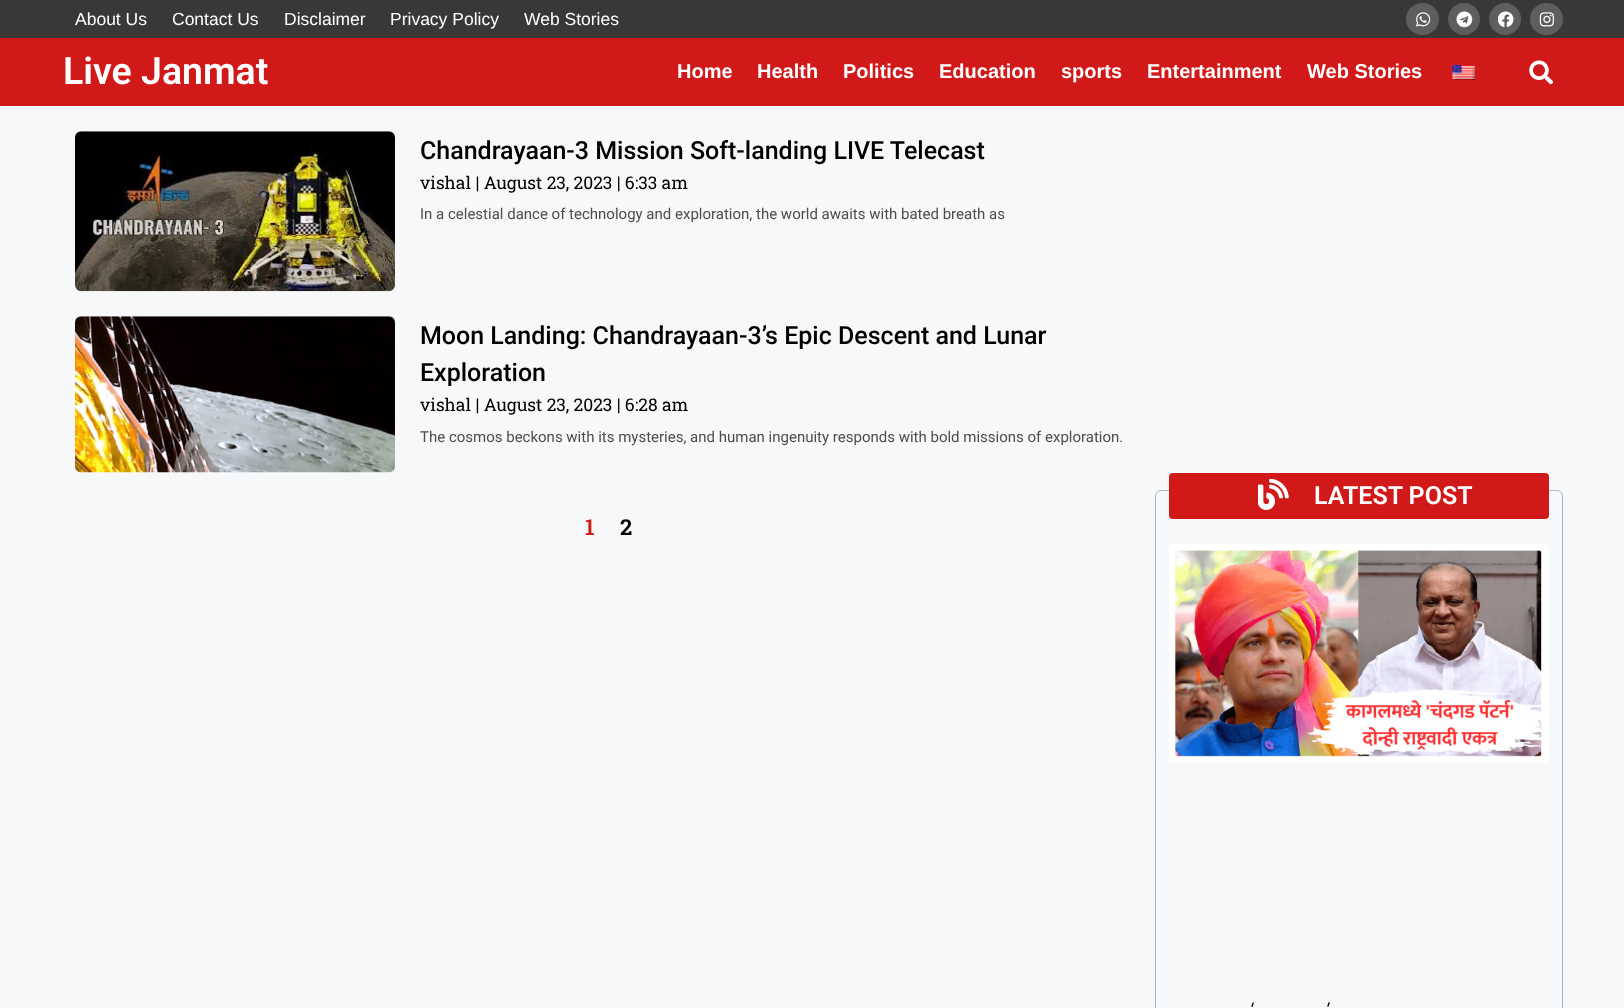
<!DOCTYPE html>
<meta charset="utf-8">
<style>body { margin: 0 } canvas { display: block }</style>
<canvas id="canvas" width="1624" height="1008"></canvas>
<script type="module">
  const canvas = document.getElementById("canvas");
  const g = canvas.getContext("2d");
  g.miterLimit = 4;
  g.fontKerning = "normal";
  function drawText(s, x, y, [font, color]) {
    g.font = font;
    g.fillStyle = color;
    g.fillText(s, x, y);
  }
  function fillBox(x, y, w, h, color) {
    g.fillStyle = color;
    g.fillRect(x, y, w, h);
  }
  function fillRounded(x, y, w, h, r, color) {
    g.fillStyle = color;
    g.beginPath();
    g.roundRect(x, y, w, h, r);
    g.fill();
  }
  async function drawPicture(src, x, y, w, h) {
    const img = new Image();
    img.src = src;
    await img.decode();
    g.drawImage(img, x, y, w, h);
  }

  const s1 = ["17.5px Liberation Sans", "#FFFFFF"];
  const s2 = ["600 37.5px Roboto", "#FFFFFF"];
  const s3 = ["bold 20px Liberation Sans", "#FFFFFF"];
  const s4 = ["500 25px Roboto", "#000000"];
  const s5 = ["17.5px Roboto Slab", "#000000"];
  const s6 = ["15px Roboto", "#4D4D4D"];
  const s7 = ["600 22px Roboto Slab", "#D11919"];
  const s8 = ["600 22px Roboto Slab", "#000000"];
  const s9 = ["600 25px Roboto", "#FFFFFF"];
  const s10 = ["17.5px Noto Sans", "#000000"];

  fillBox(0, 0, 1624, 1008, "#F7F8F9");
  fillBox(0, 0, 1624, 38, "#383838");
  drawText("About Us", 75, 25, s1);
  drawText("Contact Us", 172, 25, s1);
  drawText("Disclaimer", 284, 25, s1);
  drawText("Privacy Policy", 390, 25, s1);
  drawText("Web Stories", 524, 25, s1);
  fillRounded(1406, 3, 33, 32, 16, "#5E5E5E");
  await drawPicture("pic1.png", 1416, 12, 15, 15);
  g.beginPath();
  g.arc(1464, 19, 16, 0, Math.PI * 2);
  g.fill();
  await drawPicture("pic2.png", 1456, 11, 17, 17);
  g.beginPath();
  g.arc(1505, 19, 16, 0, Math.PI * 2);
  g.fill();
  await drawPicture("pic3.png", 1498, 11, 16, 17);
  fillRounded(1530, 3, 33, 32, 16, "#5E5E5E");
  await drawPicture("pic4.png", 1539, 12, 15, 15);
  fillBox(0, 38, 1624, 68, "#D11919");
  drawText("Live Janmat", 63, 84, s2);
  drawText("Home", 677, 78, s3);
  drawText("Health", 757, 78, s3);
  drawText("Politics", 843, 78, s3);
  drawText("Education", 939, 78, s3);
  drawText("sports", 1061, 78, s3);
  drawText("Entertainment", 1147, 78, s3);
  drawText("Web Stories", 1307, 78, s3);
  await drawPicture("pic5.png", 1452, 65, 23, 15);
  await drawPicture("pic6.png", 1529, 60, 24, 24);
  await drawPicture("pic7.png", 75, 131, 320, 161);
  drawText("Chandrayaan-3 Mission Soft-landing LIVE Telecast", 420, 159, s4);
  drawText("vishal | August 23, 2023 | 6:33 am", 420, 189, s5);
  drawText("In a celestial dance of technology and exploration, the world awaits with bated breath as", 420, 219, s6);
  await drawPicture("pic8.png", 75, 316, 320, 157);
  drawText("Moon Landing: Chandrayaan-3’s Epic Descent and Lunar", 420, 344, s4);
  drawText("Exploration", 420, 381, s4);
  drawText("vishal | August 23, 2023 | 6:28 am", 420, 411, s5);
  drawText("The cosmos beckons with its mysteries, and human ingenuity responds with bold missions of exploration.", 420, 442, s6);
  drawText("1", 585, 535, s7);
  drawText("2", 620, 535, s8);
  g.beginPath();
  g.roundRect(1155.5, 490.5, 407, 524, 5.5);
  g.strokeStyle = "#ABB8C3";
  g.stroke();
  fillRounded(1169, 473, 380, 46, 4, "#D11919");
  await drawPicture("pic9.png", 1258, 479, 31, 31);
  drawText("LATEST POST", 1314, 504, s9);
  await drawPicture("pic10.png", 1169, 544, 380, 219);
  drawText("‘", 1251, 1015, s10);
  drawText("’", 1327, 1015, s10);
</script>
